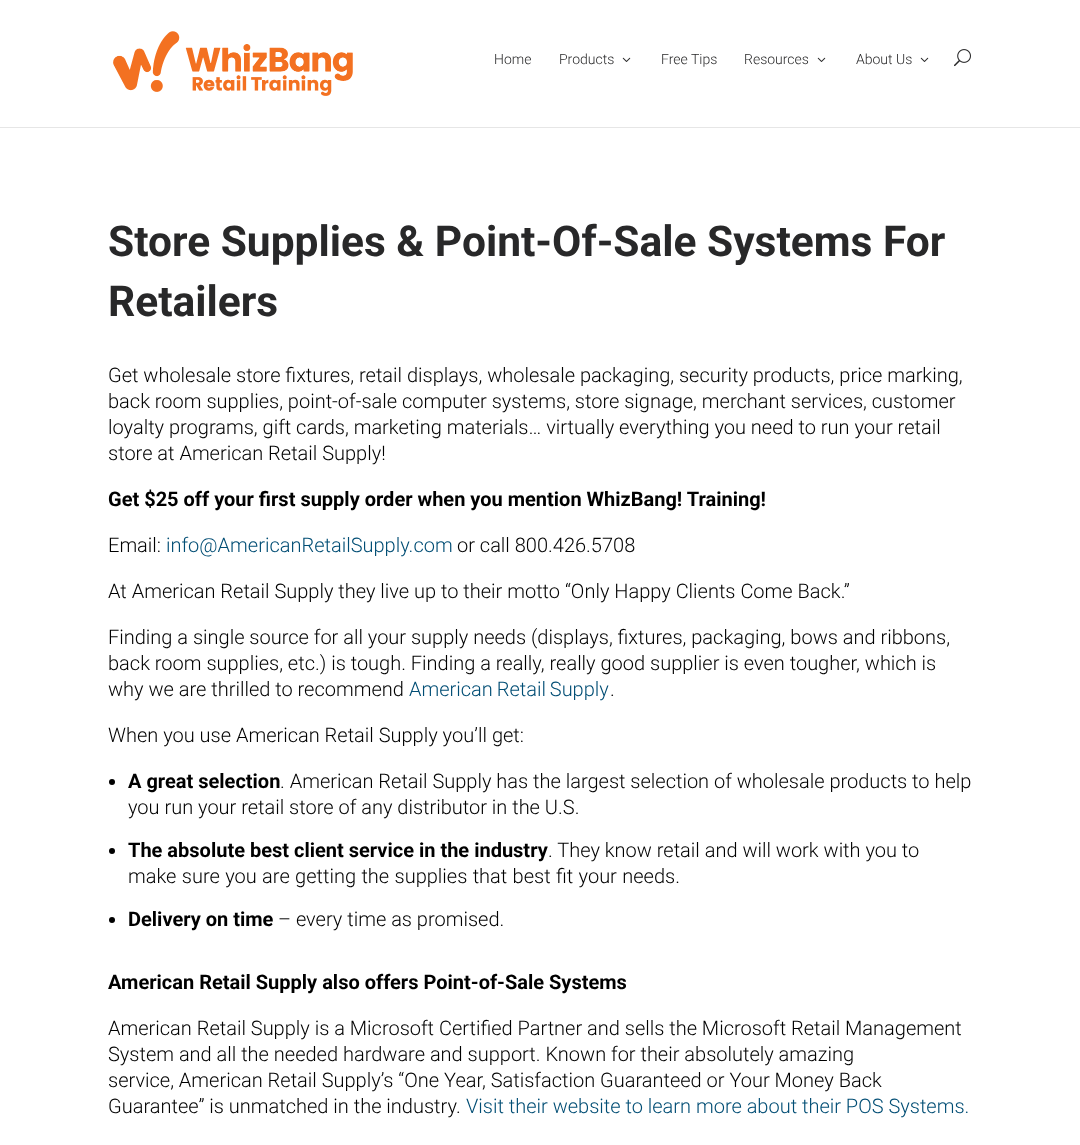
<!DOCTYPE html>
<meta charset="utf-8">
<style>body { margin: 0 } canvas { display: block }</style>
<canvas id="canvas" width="1080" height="1145"></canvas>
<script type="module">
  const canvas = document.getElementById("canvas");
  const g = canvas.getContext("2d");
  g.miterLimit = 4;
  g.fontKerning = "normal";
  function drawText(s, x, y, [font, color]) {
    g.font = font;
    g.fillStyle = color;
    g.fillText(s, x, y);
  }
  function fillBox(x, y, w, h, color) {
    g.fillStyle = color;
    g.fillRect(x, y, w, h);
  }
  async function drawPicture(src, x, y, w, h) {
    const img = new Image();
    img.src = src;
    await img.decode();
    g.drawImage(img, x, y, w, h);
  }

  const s1 = ["300 14px Roboto", "#282829"];
  const s2 = ["bold 42.5px Roboto", "#282829"];
  const s3 = ["300 20px Roboto", "#000000"];
  const s4 = ["bold 20px Roboto", "#000000"];
  const s5 = ["300 20px Roboto", "#004D74"];

  fillBox(0, 0, 1080, 1145, "#FFFFFF");
  fillBox(0, 127, 1080, 1, "#E6E6E6");
  await drawPicture("pic1.png", 113, 31, 240, 65);
  drawText("Home", 494, 64, s1);
  drawText("Products", 559, 64, s1);
  await drawPicture("pic2.png", 622, 57, 9, 5);
  drawText("Free Tips", 661, 64, s1);
  drawText("Resources", 744, 64, s1);
  await drawPicture("pic2.png", 817, 57, 9, 5);
  drawText("About Us", 856, 64, s1);
  await drawPicture("pic2.png", 920, 57, 9, 5);
  await drawPicture("pic3.png", 954, 49, 17, 18);
  drawText("Store Supplies & Point-Of-Sale Systems For", 108, 256, s2);
  drawText("Retailers", 108, 316, s2);
  drawText("Get wholesale store fixtures, retail displays, wholesale packaging, security products, price marking,", 108, 382, s3);
  drawText("back room supplies, point-of-sale computer systems, store signage, merchant services, customer", 108, 408, s3);
  drawText("loyalty programs, gift cards, marketing materials… virtually everything you need to run your retail", 108, 434, s3);
  drawText("store at American Retail Supply!", 108, 460, s3);
  drawText("Get $25 off your first supply order when you mention WhizBang! Training!", 108, 506, s4);
  drawText("Email:", 108, 552, s3);
  drawText("info@AmericanRetailSupply.com", 166, 552, s5);
  drawText("or call 800.426.5708", 457, 552, s3);
  drawText("At American Retail Supply they live up to their motto “Only Happy Clients Come Back.”", 108, 598, s3);
  drawText("Finding a single source for all your supply needs (displays, fixtures, packaging, bows and ribbons,", 108, 644, s3);
  drawText("back room supplies, etc.) is tough. Finding a really, really good supplier is even tougher, which is", 108, 670, s3);
  drawText("why we are thrilled to recommend", 108, 696, s3);
  g.wordSpacing = "-1px";
  drawText("American Retail Supply", 409, 696, s5);
  g.wordSpacing = "0px";
  drawText(".", 610, 696, s3);
  drawText("When you use American Retail Supply you’ll get:", 108, 742, s3);
  g.beginPath();
  g.arc(112, 782, 3, 0, Math.PI * 2);
  g.fill();
  drawText("A great selection", 128, 788, s4);
  drawText(". American Retail Supply has the largest selection of wholesale products to help", 280, 788, s3);
  drawText("you run your retail store of any distributor in the U.S.", 128, 814, s3);
  g.beginPath();
  g.arc(112, 851, 3, 0, Math.PI * 2);
  g.fill();
  drawText("The absolute best client service in the industry", 128, 857, s4);
  drawText(". They know retail and will work with you to", 548, 857, s3);
  g.wordSpacing = "0.5px";
  drawText("make sure you are getting the supplies that best fit your needs.", 128, 883, s3);
  g.beginPath();
  g.arc(112, 920, 3, 0, Math.PI * 2);
  g.fill();
  g.wordSpacing = "0px";
  drawText("Delivery on time", 128, 926, s4);
  drawText("– every time as promised.", 278, 926, s3);
  drawText("American Retail Supply also offers Point-of-Sale Systems", 108, 989, s4);
  drawText("American Retail Supply is a Microsoft Certified Partner and sells the Microsoft Retail Management", 108, 1035, s3);
  drawText("System and all the needed hardware and support. Known for their absolutely amazing", 108, 1061, s3);
  drawText("service, American Retail Supply’s “One Year, Satisfaction Guaranteed or Your Money Back", 108, 1087, s3);
  drawText("Guarantee” is unmatched in the industry.", 108, 1113, s3);
  drawText("Visit their website to learn more about their POS Systems.", 466, 1113, s5);
</script>
